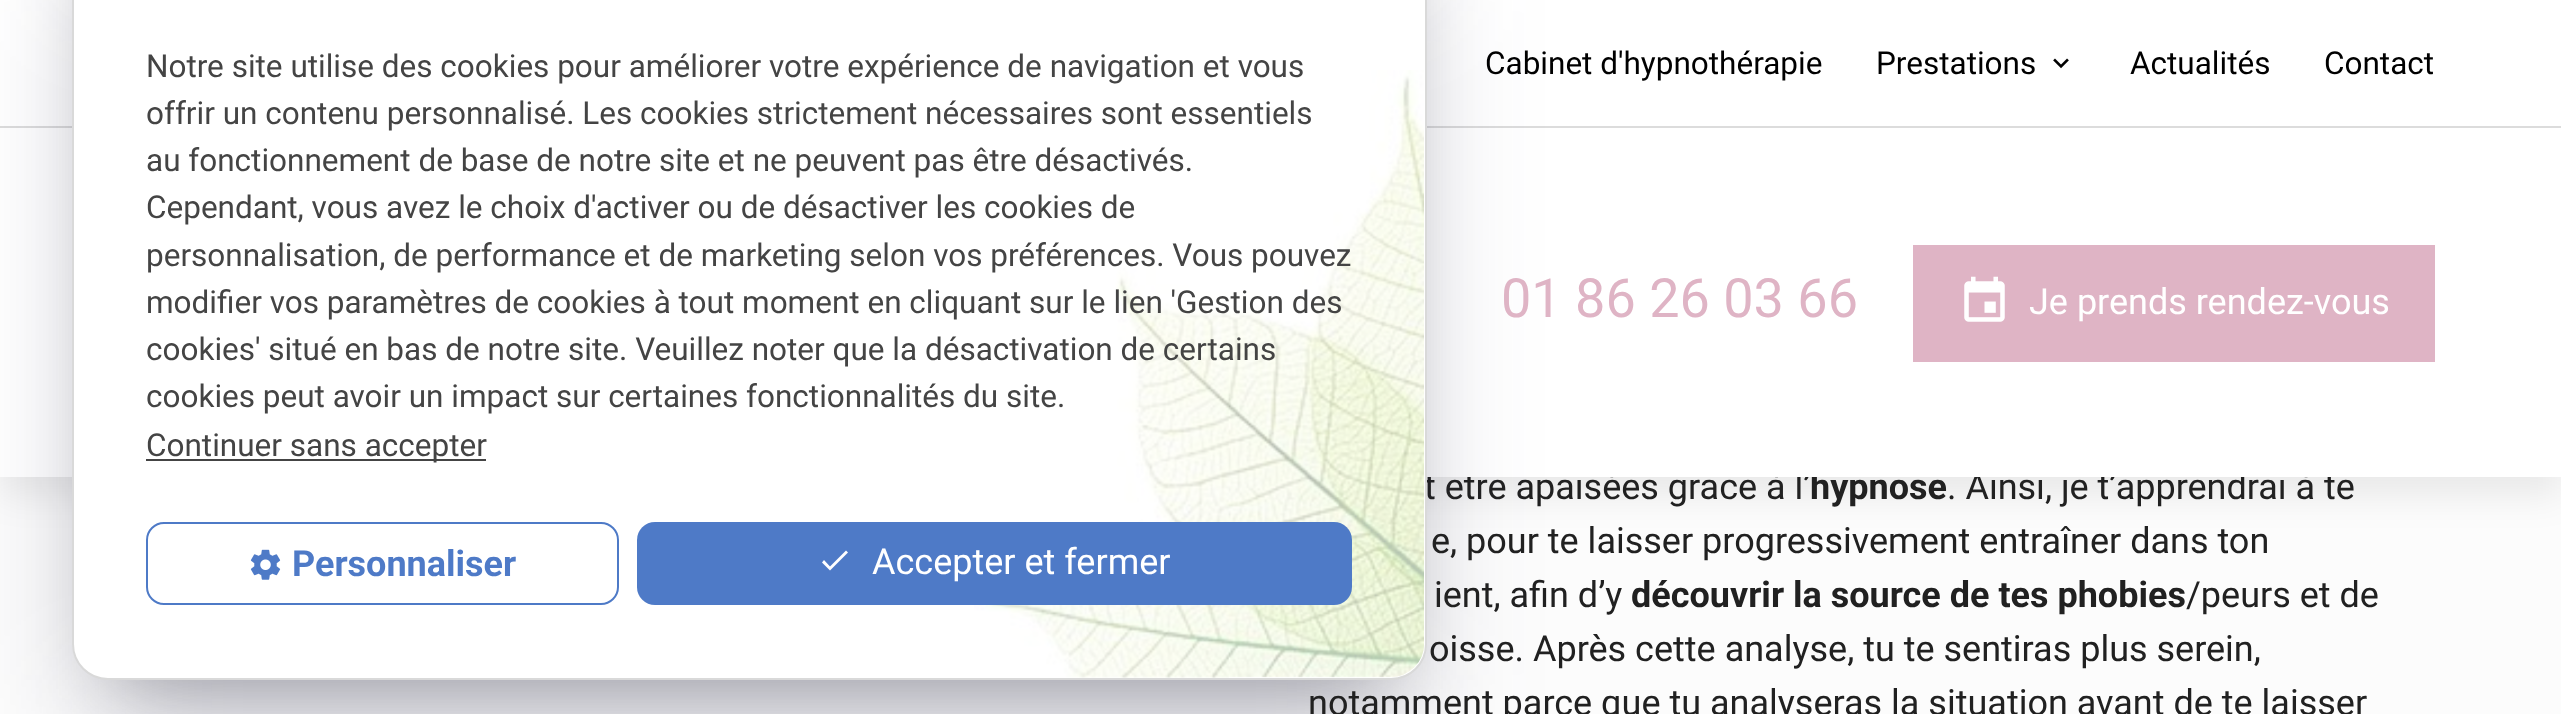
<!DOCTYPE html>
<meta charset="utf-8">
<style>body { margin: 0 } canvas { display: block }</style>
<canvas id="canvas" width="2561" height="714"></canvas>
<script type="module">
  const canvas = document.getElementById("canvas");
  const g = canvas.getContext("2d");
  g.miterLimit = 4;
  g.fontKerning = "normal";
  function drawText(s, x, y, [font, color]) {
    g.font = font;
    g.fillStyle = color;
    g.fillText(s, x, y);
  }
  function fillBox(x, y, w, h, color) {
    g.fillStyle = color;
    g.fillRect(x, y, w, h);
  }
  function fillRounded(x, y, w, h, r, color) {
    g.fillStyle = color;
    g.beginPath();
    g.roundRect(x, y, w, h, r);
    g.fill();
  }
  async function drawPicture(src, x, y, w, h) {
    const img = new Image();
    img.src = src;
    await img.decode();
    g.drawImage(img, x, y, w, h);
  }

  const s1 = ["36px Roboto", "#212121"];
  const s2 = ["bold 36px Roboto", "#212121"];
  const s3 = ["31.5px Roboto", "#444444"];
  const s4 = ["bold 36px Roboto", "#4E7AC7"];
  const s5 = ["36px Roboto", "#FFFFFF"];
  const s6 = ["31.5px Roboto", "#000000"];
  const s7 = ["54px Roboto", "#DFB4C5"];

  fillBox(0, 0, 2561, 714, "#FCFCFC");
  g.fillStyle = "rgba(0, 0, 0, 0.08)";
  g.filter = "blur(18px)";
  g.beginPath();
  g.rect(0, 18, 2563, 477);
  g.fill();
  g.filter = "none";
  drawText("t être apaisées grâce à l’", 1424, 499, s1);
  drawText("hypnose", 1810, 499, s2);
  drawText(". Ainsi, je t’apprendrai à te", 1947, 499, s1);
  fillBox(0, 0, 2561, 477, "#FFFFFF");
  fillBox(0, 126, 2561, 2, "#DCDCDC");
  g.fillStyle = "rgba(0, 0, 0, 0.3)";
  g.filter = "blur(40.5px)";
  g.beginPath();
  g.rect(113, -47, 1273, 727);
  g.fill();
  g.filter = "none";
  g.fillStyle = "rgba(50, 50, 93, 0.25)";
  g.filter = "blur(67.5px)";
  g.beginPath();
  g.roundRect(99, -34, 1301, 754, 9);
  g.fill();
  g.filter = "none";
  g.fillStyle = "#FFFFFF";
  g.beginPath();
  g.roundRect(73, -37, 1353, 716, 35);
  g.fill();
  g.strokeStyle = "#D9D9D9";
  g.lineWidth = 2;
  g.stroke();
  await drawPicture("pic2.png", 974, 70, 450, 608);
  drawText("Notre site utilise des cookies pour améliorer votre expérience de navigation et vous", 146, 77, s3);
  drawText("offrir un contenu personnalisé. Les cookies strictement nécessaires sont essentiels", 146, 124, s3);
  drawText("au fonctionnement de base de notre site et ne peuvent pas être désactivés.", 146, 171, s3);
  drawText("Cependant, vous avez le choix d'activer ou de désactiver les cookies de", 146, 218, s3);
  drawText("personnalisation, de performance et de marketing selon vos préférences. Vous pouvez", 146, 266, s3);
  drawText("modifier vos paramètres de cookies à tout moment en cliquant sur le lien 'Gestion des", 146, 313, s3);
  drawText("cookies' situé en bas de notre site. Veuillez noter que la désactivation de certains", 146, 360, s3);
  drawText("cookies peut avoir un impact sur certaines fonctionnalités du site.", 146, 407, s3);
  fillBox(146, 459, 340, 2, "#444444");
  drawText("Continuer sans accepter", 146, 456, s3);
  g.beginPath();
  g.roundRect(147, 523, 471, 81, 17);
  g.strokeStyle = "#4E7AC7";
  g.stroke();
  await drawPicture("pic1.png", 250, 549, 31, 31);
  drawText("Personnaliser", 292, 576, s4);
  fillRounded(637, 522, 715, 83, 18, "#4E7AC7");
  g.fillStyle = "#FFFFFF";
  g.beginPath();
  g.moveTo(830, 566.5);
  g.lineTo(846, 550.5);
  g.lineTo(848, 552.5);
  g.lineTo(830, 570.5);
  g.lineTo(822, 562.5);
  g.lineTo(824, 560);
  g.closePath();
  g.fill();
  drawText("Accepter et fermer", 872, 574, s5);
  drawText("Cabinet d'hypnothérapie", 1485, 74, s6);
  drawText("Prestations", 1876, 74, s6);
  await drawPicture("pic3.png", 2053, 58, 16, 11);
  drawText("Actualités", 2130, 74, s6);
  drawText("Contact", 2324, 74, s6);
  drawText("01 86 26 03 66", 1501, 317, s7);
  fillBox(1913, 245, 522, 117, "#DFB4C5");
  await drawPicture("pic4.png", 1964, 276, 41, 46);
  drawText("Je prends rendez-vous", 2029, 314, s5);
  drawText("e, pour te laisser progressivement entraîner dans ton", 1431, 553, s1);
  drawText("ient, afin d’y", 1434, 607, s1);
  drawText("découvrir la source de tes phobies", 1631, 607, s2);
  drawText("/peurs et de", 2186, 607, s1);
  drawText("oisse. Après cette analyse, tu te sentiras plus serein,", 1429, 661, s1);
  drawText("notamment parce que tu analyseras la situation avant de te laisser", 1308, 715, s1);
</script>
